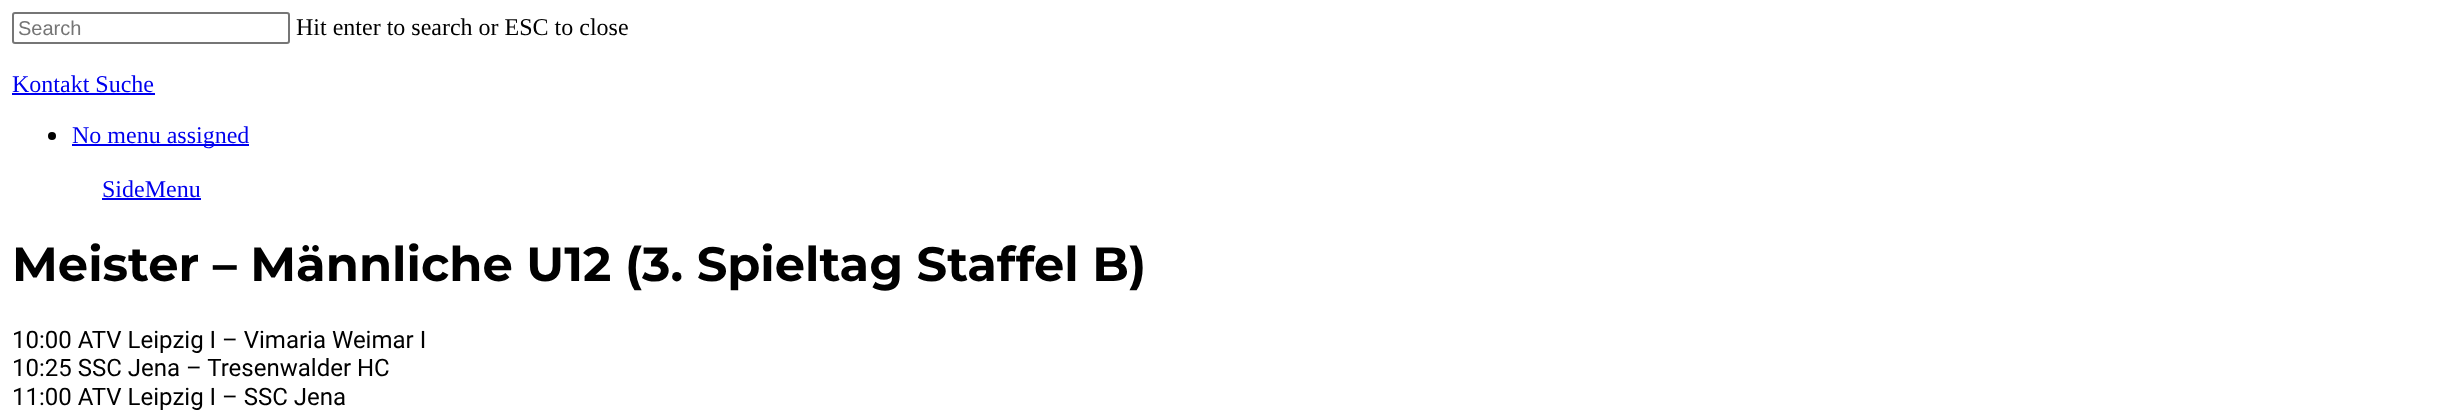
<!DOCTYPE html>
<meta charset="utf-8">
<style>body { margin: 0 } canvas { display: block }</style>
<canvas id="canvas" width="2452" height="414"></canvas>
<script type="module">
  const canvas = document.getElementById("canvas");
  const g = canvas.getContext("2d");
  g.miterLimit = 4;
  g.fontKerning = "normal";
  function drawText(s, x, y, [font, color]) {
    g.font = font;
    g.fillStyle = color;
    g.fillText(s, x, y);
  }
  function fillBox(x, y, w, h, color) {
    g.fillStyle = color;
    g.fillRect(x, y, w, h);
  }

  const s1 = ["20px Liberation Sans", "#757575"];
  const s2 = ["24px Liberation Serif", "#000000"];
  const s3 = ["24px Liberation Serif", "#0000EE"];
  const s4 = ["bold 48px Montserrat", "#000000"];
  const s5 = ["24px Roboto", "#000000"];

  fillBox(0, 0, 2452, 414, "#FFFFFF");
  g.beginPath();
  g.roundRect(13, 13, 276, 30, 2);
  g.strokeStyle = "#767676";
  g.lineWidth = 2;
  g.stroke();
  drawText("Search", 18, 35, s1);
  drawText("Hit enter to search or ESC to close", 296, 35, s2);
  drawText("Kontakt Suche", 12, 92, s3);
  fillBox(12, 93, 143, 2, "#0000EE");
  g.fillStyle = "#000000";
  g.beginPath();
  g.arc(52, 136, 4, 0, Math.PI * 2);
  g.fill();
  fillBox(72, 144, 177, 2, "#0000EE");
  drawText("No menu assigned", 72, 143, s3);
  drawText("SideMenu", 102, 197, s3);
  fillBox(102, 198, 99, 2, "#0000EE");
  drawText("Meister – Männliche U12 (3. Spieltag Staffel B)", 12, 281, s4);
  drawText("10:00 ATV Leipzig I – Vimaria Weimar I", 12, 348, s5);
  drawText("10:25 SSC Jena – Tresenwalder HC", 12, 376, s5);
  drawText("11:00 ATV Leipzig I – SSC Jena", 12, 405, s5);
</script>
